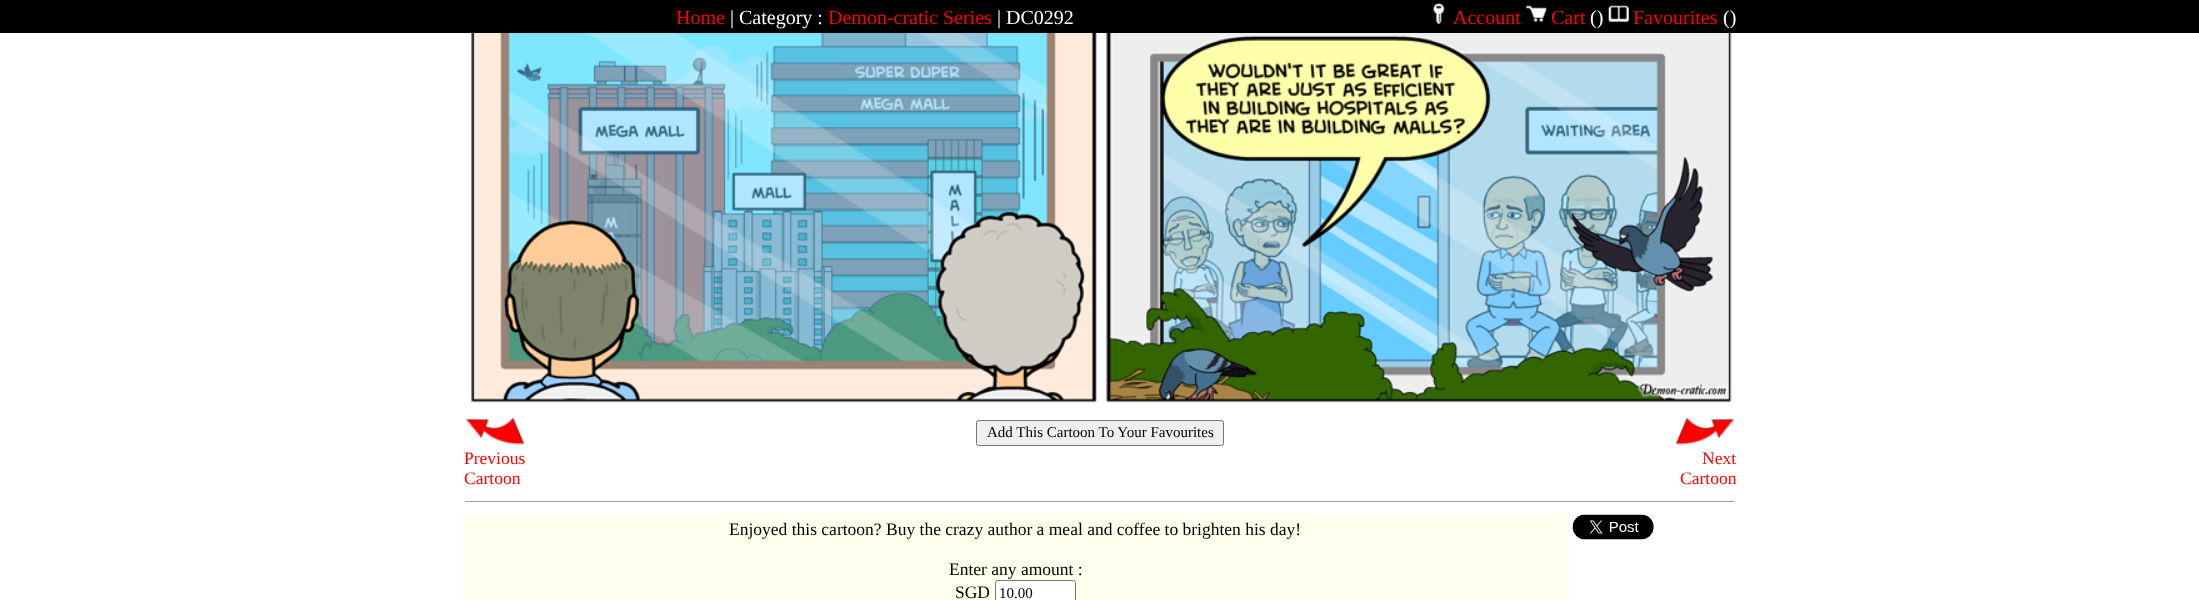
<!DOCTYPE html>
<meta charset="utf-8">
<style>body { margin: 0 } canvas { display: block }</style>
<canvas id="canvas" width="2199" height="600"></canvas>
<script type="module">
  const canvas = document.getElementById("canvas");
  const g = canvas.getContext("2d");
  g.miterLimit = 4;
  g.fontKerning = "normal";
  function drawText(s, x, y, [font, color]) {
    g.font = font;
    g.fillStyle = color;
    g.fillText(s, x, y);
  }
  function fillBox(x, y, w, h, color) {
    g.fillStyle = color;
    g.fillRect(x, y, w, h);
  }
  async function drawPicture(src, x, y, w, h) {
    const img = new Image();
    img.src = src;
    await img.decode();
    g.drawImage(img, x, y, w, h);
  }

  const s1 = ["20px Liberation Serif", "#FF0000"];
  const s2 = ["20px Liberation Serif", "#FFFFFF"];
  const s3 = ["15px Liberation Serif", "#000000"];
  const s4 = ["17.5px Liberation Serif", "#FF0000"];
  const s5 = ["17.5px Liberation Serif", "#000000"];

  fillBox(0, 0, 2199, 600, "#FFFFFF");
  fillBox(0, 0, 2199, 33, "#000000");
  drawText("Home", 676, 24, s1);
  drawText("| Category :", 730, 24, s2);
  drawText("Demon-cratic Series", 828, 24, s1);
  drawText("| DC0292", 997, 24, s2);
  await drawPicture("pic1.png", 1432, 3, 13, 21);
  drawText("Account", 1453, 24, s1);
  await drawPicture("pic2.png", 1525, 5, 22, 17);
  drawText("Cart", 1551, 24, s1);
  drawText("()", 1590, 24, s2);
  await drawPicture("pic3.png", 1608, 5, 21, 17);
  drawText("Favourites", 1633, 24, s1);
  drawText("()", 1723, 24, s2);
  await drawPicture("pic4.png", 471, 33, 1261, 370);
  g.fillStyle = "#EFEFEF";
  g.beginPath();
  g.roundRect(976.5, 420.5, 247, 25, 2);
  g.fill();
  g.strokeStyle = "#767676";
  g.stroke();
  drawText("Add This Cartoon To Your Favourites", 987, 437, s3);
  await drawPicture("pic5.png", 466, 417, 59, 28);
  drawText("Previous", 464, 464, s4);
  drawText("Cartoon", 464, 484, s4);
  await drawPicture("pic6.png", 1675, 417, 60, 28);
  drawText("Next", 1702, 464, s4);
  drawText("Cartoon", 1680, 484, s4);
  fillBox(465, 501, 1270, 1, "#9F9F9F");
  fillBox(1734, 501, 1, 1, "#EEEEEE");
  fillBox(463, 514, 1106, 86, "#FFFFEE");
  drawText("Enjoyed this cartoon? Buy the crazy author a meal and coffee to brighten his day!", 729, 535, s5);
  drawText("Enter any amount :", 949, 575, s5);
  drawText("SGD", 955, 598, s5);
  g.fillStyle = "#FFFFFF";
  g.beginPath();
  g.roundRect(995.5, 580.5, 80, 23, 2);
  g.fill();
  g.stroke();
  drawText("10.00", 999, 598, s3);
  await drawPicture("pic7.png", 1572, 514, 82, 26);
</script>
